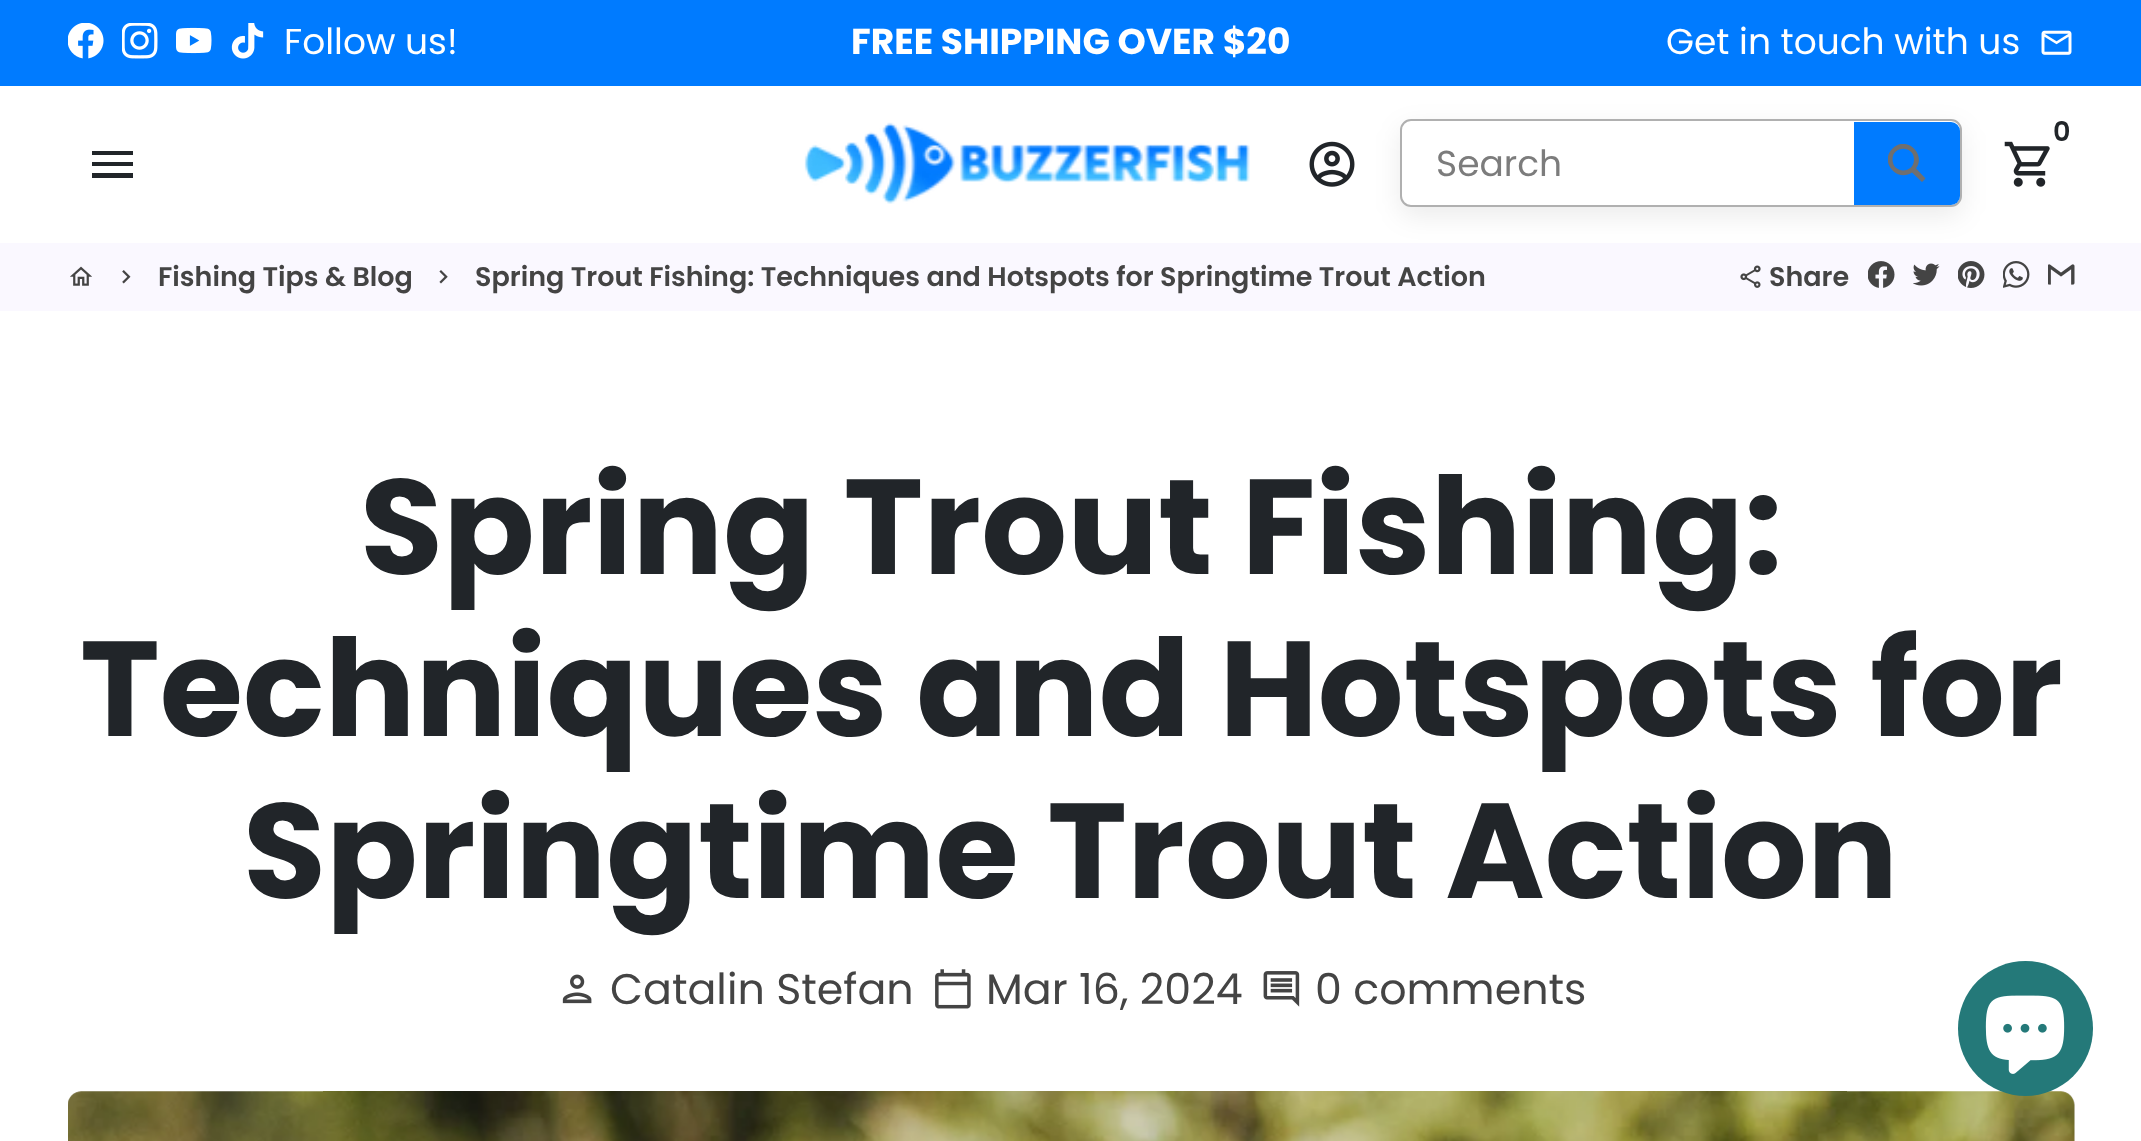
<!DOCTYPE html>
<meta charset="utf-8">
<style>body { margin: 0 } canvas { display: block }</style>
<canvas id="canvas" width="2141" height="1141"></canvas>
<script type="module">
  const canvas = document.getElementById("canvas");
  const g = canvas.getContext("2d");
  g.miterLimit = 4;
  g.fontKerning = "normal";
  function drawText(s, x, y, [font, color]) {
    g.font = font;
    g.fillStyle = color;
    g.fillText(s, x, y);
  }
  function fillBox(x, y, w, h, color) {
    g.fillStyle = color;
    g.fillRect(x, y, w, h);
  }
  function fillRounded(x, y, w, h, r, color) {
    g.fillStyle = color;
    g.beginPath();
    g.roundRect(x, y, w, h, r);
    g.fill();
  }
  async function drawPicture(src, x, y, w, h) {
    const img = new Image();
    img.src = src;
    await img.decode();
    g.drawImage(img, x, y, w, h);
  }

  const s1 = ["36px Poppins", "#FFFFFF"];
  const s2 = ["bold 36px Poppins", "#FFFFFF"];
  const s3 = ["600 27px Poppins", "#212529"];
  const s4 = ["36px Poppins", "#7C7C7C"];
  const s5 = ["600 27px Poppins", "#444444"];
  const s6 = ["bold 135px Poppins", "#212529"];
  const s7 = ["42.75px Poppins", "#444444"];

  fillBox(0, 0, 2141, 1141, "#FFFFFF");
  fillBox(0, 0, 2141, 86, "#007BFF");
  await drawPicture("pic1.png", 68, 23, 36, 36);
  await drawPicture("pic2.png", 122, 23, 36, 36);
  await drawPicture("pic3.png", 176, 27, 36, 27);
  await drawPicture("pic4.png", 231, 23, 33, 36);
  drawText("Follow us!", 284, 54, s1);
  drawText("FREE SHIPPING OVER $20", 851, 54, s2);
  drawText("Get in touch with us", 1666, 54, s1);
  await drawPicture("pic5.png", 2041, 30, 31, 25);
  g.fillStyle = "#212529";
  g.beginPath();
  g.moveTo(92, 178);
  g.lineTo(133, 178);
  g.lineTo(133, 173);
  g.lineTo(92, 173);
  g.closePath();
  g.moveTo(92, 166);
  g.lineTo(133, 166);
  g.lineTo(133, 162);
  g.lineTo(92, 162);
  g.closePath();
  g.moveTo(92, 151);
  g.lineTo(92, 155);
  g.lineTo(133, 155);
  g.lineTo(133, 151);
  g.closePath();
  g.fill();
  await drawPicture("pic6.png", 804, 122, 446, 82);
  drawText("0", 2053, 141, s3);
  await drawPicture("pic7.png", 2004, 141, 46, 46);
  await drawPicture("pic8.png", 1309, 141, 46, 46);
  fillBox(0, 243, 2141, 68, "#FAF8FF");
  g.fillStyle = "rgba(0, 0, 0, 0.08)";
  g.filter = "blur(13.5px)";
  g.beginPath();
  g.roundRect(1400, 128, 562, 88, 11);
  g.fill();
  g.filter = "none";
  g.fillStyle = "#FFFFFF";
  g.beginPath();
  g.roundRect(1401, 120, 560, 86, 10);
  g.fill();
  g.strokeStyle = "#B0B0B0";
  g.lineWidth = 2;
  g.stroke();
  drawText("Search", 1436, 176, s4);
  g.fillStyle = "#007BFF";
  g.beginPath();
  g.roundRect(1854, 122, 106, 83, [0, 9, 9, 0]);
  g.fill();
  g.save();
  g.beginPath();
  g.rect(1888, 144, 38, 38);
  g.clip();
  g.fillStyle = "#6F6F6F";
  g.beginPath();
  g.moveTo(1925.5, 178.5);
  g.lineTo(1916, 168.5);
  g.bezierCurveTo(1926.5, 153.5, 1906, 135, 1892.5, 148.5);
  g.bezierCurveTo(1879, 162, 1897, 182.5, 1912, 172.5);
  g.lineTo(1922, 182);
  g.closePath();
  g.moveTo(1892.5, 159.5);
  g.bezierCurveTo(1892.5, 145, 1914, 145, 1914, 159.5);
  g.bezierCurveTo(1914, 174, 1892.5, 174, 1892.5, 159.5);
  g.closePath();
  g.fill();
  g.restore();
  await drawPicture("pic9.png", 70, 266, 22, 20);
  await drawPicture("pic10.png", 122, 270, 9, 14);
  drawText("Fishing Tips & Blog", 158, 286, s5);
  await drawPicture("pic11.png", 439, 270, 9, 14);
  drawText("Spring Trout Fishing: Techniques and Hotspots for Springtime Trout Action", 475, 286, s5);
  await drawPicture("pic12.png", 1740, 265, 21, 23);
  drawText("Share", 1769, 286, s5);
  await drawPicture("pic13.png", 1868, 261, 27, 27);
  await drawPicture("pic14.png", 1913, 263, 27, 23);
  await drawPicture("pic15.png", 1958, 261, 27, 27);
  await drawPicture("pic16.png", 2003, 261, 27, 27);
  await drawPicture("pic17.png", 2048, 264, 27, 21);
  drawText("Spring Trout Fishing:", 360, 574, s6);
  drawText("Techniques and Hotspots for", 80, 736, s6);
  drawText("Springtime Trout Action", 243, 898, s6);
  await drawPicture("pic18.png", 562, 974, 30, 30);
  drawText("Catalin Stefan", 610, 1004, s7);
  await drawPicture("pic19.png", 935, 969, 36, 40);
  drawText("Mar 16, 2024", 986, 1004, s7);
  await drawPicture("pic20.png", 1263, 971, 37, 36);
  drawText("0 comments", 1315, 1004, s7);
  fillRounded(68, 1091, 2007, 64, 14, "#FAF8FF");
  await drawPicture("pic21.png", 68, 1091, 2007, 50);
  g.fillStyle = "#247979";
  g.beginPath();
  g.arc(2025.5, 1028.5, 67.5, 0, Math.PI * 2);
  g.fill();
  await drawPicture("pic22.png", 1985, 995, 80, 79);
</script>
